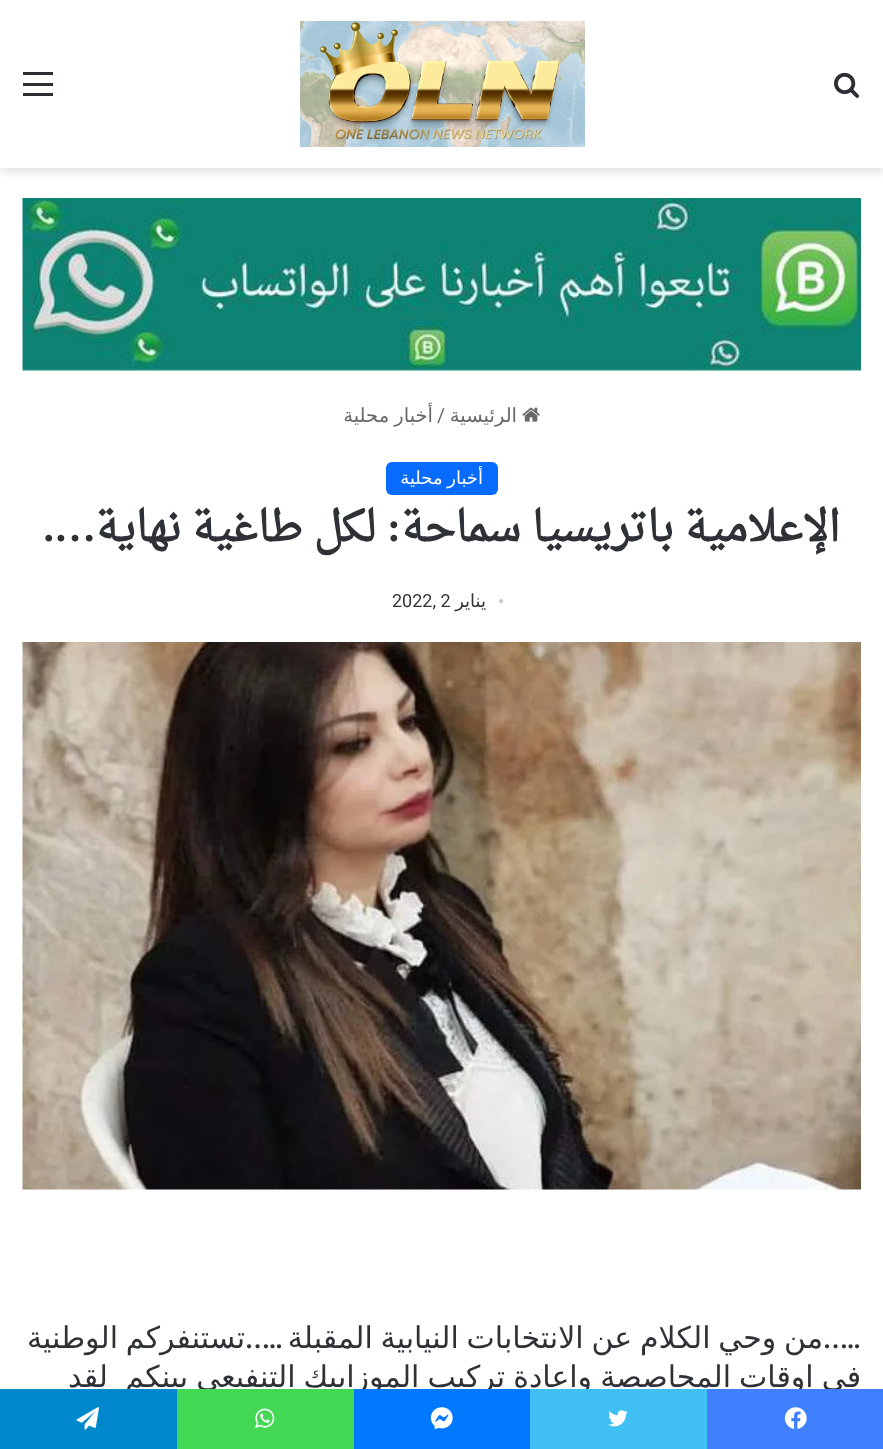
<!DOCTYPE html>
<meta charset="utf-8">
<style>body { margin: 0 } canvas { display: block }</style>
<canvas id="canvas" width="883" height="1449"></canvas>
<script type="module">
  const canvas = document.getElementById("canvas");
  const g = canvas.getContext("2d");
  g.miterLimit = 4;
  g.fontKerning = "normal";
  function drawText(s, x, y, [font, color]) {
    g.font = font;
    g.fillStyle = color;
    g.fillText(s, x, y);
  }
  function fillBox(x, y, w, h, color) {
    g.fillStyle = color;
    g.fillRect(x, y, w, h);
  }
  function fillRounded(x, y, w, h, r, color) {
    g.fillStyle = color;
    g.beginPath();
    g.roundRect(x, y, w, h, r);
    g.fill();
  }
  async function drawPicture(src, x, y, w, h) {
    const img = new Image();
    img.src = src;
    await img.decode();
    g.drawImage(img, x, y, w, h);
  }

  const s1 = ["19.5px DejaVu Sans", "#686868"];
  const s2 = ["19.5px Roboto", "#686868"];
  const s3 = ["18px DejaVu Sans", "#FFFFFF"];
  const s4 = ["bold 42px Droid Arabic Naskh", "#2E3136"];
  const s5 = ["bold 42px Liberation Serif", "#2E3136"];
  const s6 = ["18px Liberation Serif", "#CDCDCD"];
  const s7 = ["18px DejaVu Sans", "#353535"];
  const s8 = ["18px Roboto", "#353535"];
  const s9 = ["30px DejaVu Sans", "#2E3136"];
  const s10 = ["500 30px Roboto", "#2E3136"];

  fillBox(0, 0, 883, 1449, "#FFFFFF");
  g.save();
  g.beginPath();
  g.rect(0, 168, 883, 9);
  g.clip();
  g.fillStyle = "rgba(0, 0, 0, 0.1)";
  g.filter = "blur(5px)";
  g.beginPath();
  g.rect(0, 5, 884, 168);
  g.fill();
  g.filter = "none";
  g.restore();
  await drawPicture("pic1.png", 834, 72, 25, 26);
  await drawPicture("pic2.png", 300, 21, 285, 126);
  fillBox(23, 83, 30, 3, "#2C2F34");
  fillBox(23, 72, 30, 3, "#2C2F34");
  fillBox(23, 93, 30, 3, "#2C2F34");
  await drawPicture("pic3.png", 22, 198, 839, 173);
  await drawPicture("pic4.png", 522, 407, 18, 15);
  g.direction = "rtl";
  drawText("الرئيسية", 517, 422, s1);
  g.direction = "ltr";
  drawText("/", 437, 422, s2);
  g.wordSpacing = "-1px";
  g.direction = "rtl";
  drawText("أخبار محلية", 433, 422, s1);
  fillRounded(386, 462, 112, 33, 6, "#086BFF");
  drawText("أخبار محلية", 483, 484, s3);
  g.wordSpacing = "0px";
  drawText("الإعلامية باتريسيا سماحة", 840, 541, s4);
  drawText(":", 401, 541, s5);
  drawText("لكل طاغية نهاية", 376, 541, s4);
  drawText("….", 96, 541, s5);
  g.direction = "ltr";
  drawText("•", 498, 607, s6);
  g.direction = "rtl";
  drawText("يناير", 486, 607, s7);
  g.direction = "ltr";
  drawText("2022, 2", 392, 607, s8);
  await drawPicture("pic5.png", 22, 642, 839, 548);
  g.wordSpacing = "-1.75px";
  g.direction = "rtl";
  drawText("من وحي الكلام عن الانتخابات النيابية المقبلة", 823, 1348, s9);
  g.wordSpacing = "0px";
  drawText("…..", 861, 1348, s10);
  drawText("…..", 283, 1348, s10);
  g.wordSpacing = "-1.75px";
  drawText("تستنفركم الوطنية", 245, 1348, s9);
  g.wordSpacing = "-1.5px";
  drawText("في اوقات المحاصصة واعادة تركيب الموزاييك التنفيعي بينكم", 861, 1387, s9);
  g.wordSpacing = "0px";
  drawText("لقد", 108, 1387, s9);
  fillBox(707, 1389, 176, 60, "#4080FF");
  await drawPicture("pic6.png", 784, 1407, 23, 22);
  fillBox(530, 1389, 177, 60, "#40BFF5");
  await drawPicture("pic7.png", 608, 1410, 20, 17);
  fillBox(354, 1389, 176, 60, "#0078FF");
  await drawPicture("pic8.png", 430, 1407, 23, 22);
  fillBox(177, 1389, 177, 60, "#43D854");
  await drawPicture("pic9.png", 255, 1408, 20, 20);
  fillBox(0, 1389, 177, 60, "#0088CC");
  await drawPicture("pic10.png", 76, 1407, 23, 23);
</script>
